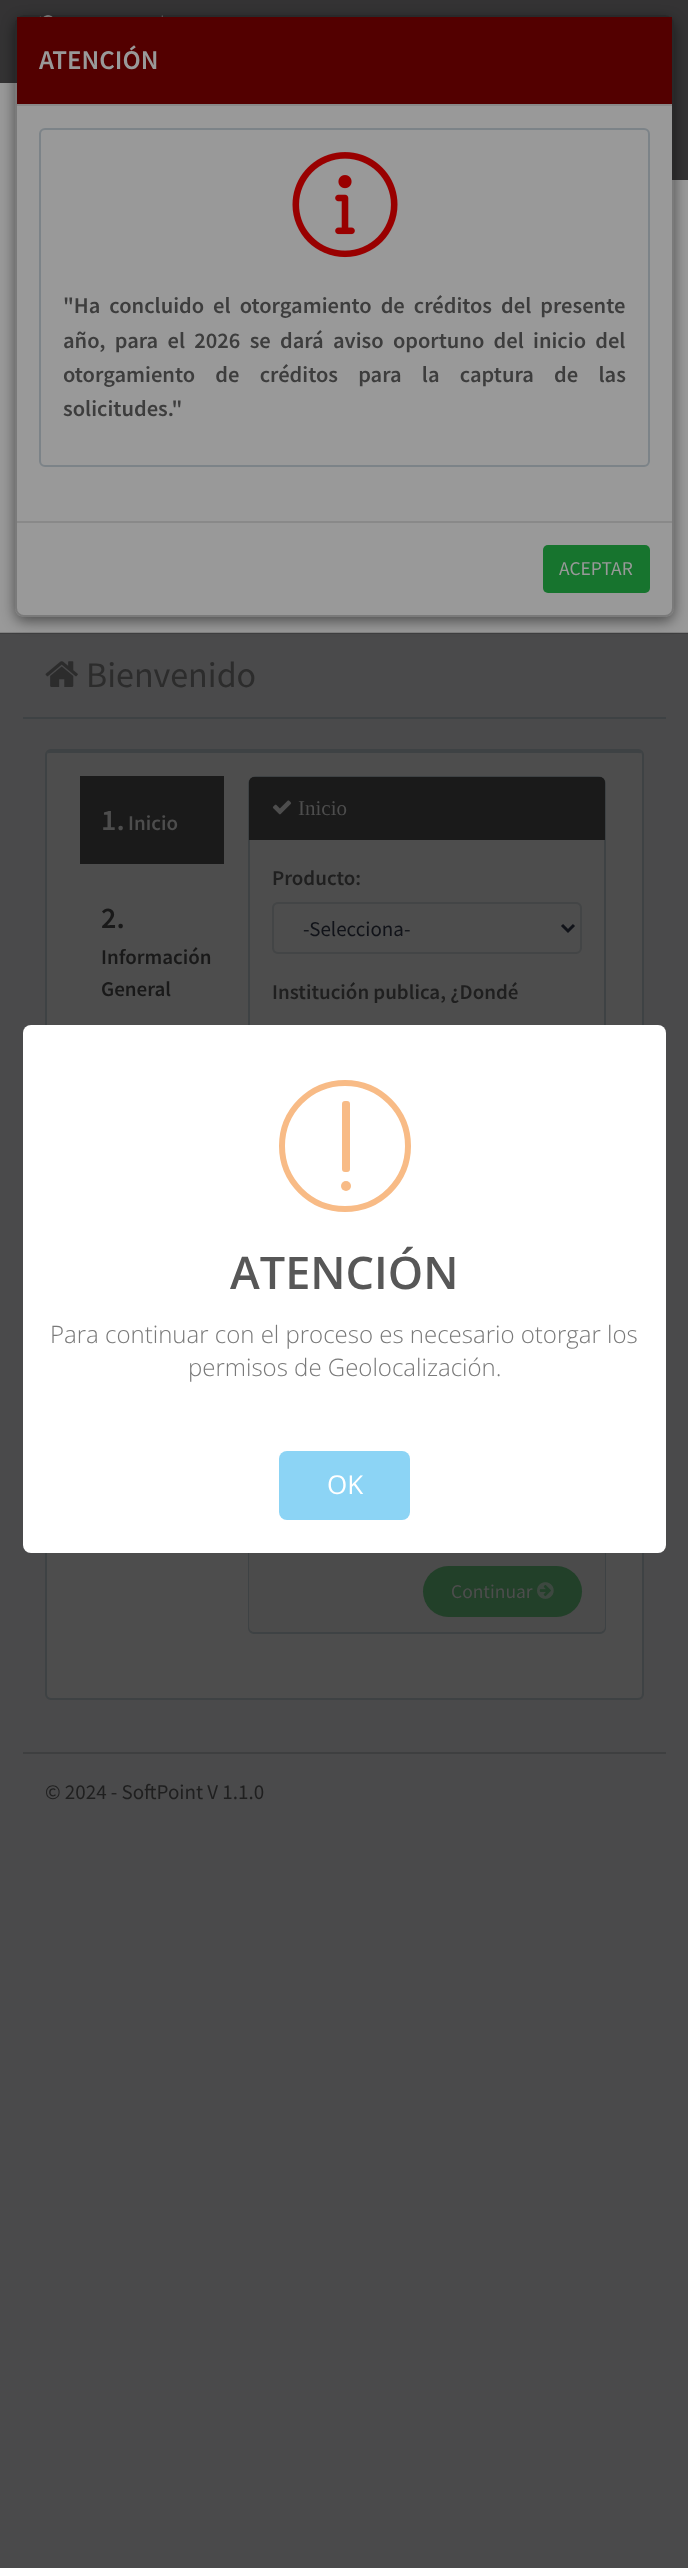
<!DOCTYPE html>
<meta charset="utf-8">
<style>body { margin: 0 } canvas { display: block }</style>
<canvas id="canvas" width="688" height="2568"></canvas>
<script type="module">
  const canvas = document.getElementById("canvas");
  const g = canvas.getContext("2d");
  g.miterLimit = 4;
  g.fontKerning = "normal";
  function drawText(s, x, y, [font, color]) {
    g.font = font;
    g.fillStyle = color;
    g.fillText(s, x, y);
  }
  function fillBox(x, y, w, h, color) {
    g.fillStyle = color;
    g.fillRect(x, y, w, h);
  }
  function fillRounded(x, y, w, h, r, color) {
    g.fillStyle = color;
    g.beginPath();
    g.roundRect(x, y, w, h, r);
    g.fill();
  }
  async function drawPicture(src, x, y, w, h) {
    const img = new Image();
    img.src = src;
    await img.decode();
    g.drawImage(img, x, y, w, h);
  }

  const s1 = ["600 27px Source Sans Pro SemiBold", "#999999"];
  const s2 = ["600 22.5px Source Sans Pro SemiBold", "#3D3D3D"];
  const s3 = ["19.5px Source Sans Pro", "#999999"];
  const s4 = ["36px Source Sans Pro", "#2C2C2C"];
  const s5 = ["600 30px Source Sans Pro SemiBold", "#4D4D4D"];
  const s6 = ["600 21px Source Sans Pro SemiBold", "#4D4D4D"];
  const s7 = ["600 30px Source Sans Pro SemiBold", "#191919"];
  const s8 = ["600 21px Source Sans Pro SemiBold", "#191919"];
  const s9 = ["21px Liberation Serif", "#4D4D4D"];
  const s10 = ["600 21px Source Sans Pro SemiBold", "#1F1F1F"];
  const s11 = ["21px Source Sans Pro", "#111319"];
  const s12 = ["19.5px Source Sans Pro", "#4D4D4D"];
  const s13 = ["21px Source Sans Pro", "#1F1F1F"];
  const s14 = ["600 45px Open Sans", "#575757"];
  const s15 = ["300 24px Open Sans", "#797979"];
  const s16 = ["26px Open Sans", "#FFFFFF"];

  fillBox(0, 0, 688, 2568, "#4A4A4B");
  fillBox(0, 633, 688, 1, "#3F3F40");
  fillBox(0, 83, 688, 549, "#999999");
  fillBox(0, 632, 688, 1, "#828282");
  fillBox(0, 0, 688, 83, "#343334");
  await drawPicture("pic1.png", 39, 15, 124, 2);
  fillBox(672, 83, 16, 97, "#343334");
  g.save();
  g.beginPath();
  g.moveTo(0, 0);
  g.lineTo(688, 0);
  g.lineTo(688, 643);
  g.lineTo(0, 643);
  g.closePath();
  g.moveTo(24, 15);
  g.lineTo(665, 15);
  g.bezierCurveTo(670, 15, 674, 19, 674, 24);
  g.lineTo(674, 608);
  g.bezierCurveTo(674, 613, 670, 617, 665, 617);
  g.lineTo(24, 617);
  g.bezierCurveTo(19, 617, 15, 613, 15, 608);
  g.lineTo(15, 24);
  g.bezierCurveTo(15, 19, 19, 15, 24, 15);
  g.closePath();
  g.clip("evenodd");
  g.fillStyle = "rgba(0, 0, 0, 0.5)";
  g.filter = "blur(7px)";
  g.beginPath();
  g.roundRect(15, 20, 659, 601, 9);
  g.fill();
  g.filter = "none";
  g.restore();
  fillRounded(17, 17, 655, 598, 8, "#999999");
  g.beginPath();
  g.roundRect(16, 16, 657, 600, 8);
  g.strokeStyle = "rgba(0, 0, 0, 0.2)";
  g.lineWidth = 2;
  g.stroke();
  fillBox(17, 17, 655, 87, "#530000");
  fillBox(17, 104, 655, 2, "#898989");
  drawText("ATENCIÓN", 39, 69, s1);
  g.beginPath();
  g.roundRect(40, 129, 609, 337, 5);
  g.strokeStyle = "#7C8388";
  g.stroke();
  await drawPicture("pic2.png", 292, 152, 106, 106);
  g.wordSpacing = "4.5px";
  drawText("\"Ha concluido el otorgamiento de créditos del presente", 63, 313, s2);
  g.wordSpacing = "4.75px";
  drawText("año, para el 2026 se dará aviso oportuno del inicio del", 63, 348, s2);
  g.wordSpacing = "15.75px";
  drawText("otorgamiento de créditos para la captura de las", 63, 382, s2);
  g.wordSpacing = "0px";
  drawText("solicitudes.\"", 63, 416, s2);
  fillBox(17, 521, 655, 2, "#898989");
  fillRounded(543, 545, 107, 48, 5, "#17742E");
  drawText("ACEPTAR", 559, 575, s3);
  fillBox(23, 717, 643, 2, "#3E4244");
  await drawPicture("pic3.png", 45, 661, 33, 26);
  drawText("Bienvenido", 86, 687, s4);
  g.fillStyle = "#4D4D4D";
  g.beginPath();
  g.moveTo(51, 753);
  g.lineTo(638, 753);
  g.bezierCurveTo(640, 753, 642, 754, 642, 754);
  g.lineTo(642, 1694);
  g.bezierCurveTo(642, 1696, 640, 1698, 638, 1698);
  g.lineTo(51, 1698);
  g.bezierCurveTo(49, 1698, 46, 1696, 46, 1694);
  g.lineTo(46, 754);
  g.bezierCurveTo(46, 754, 49, 753, 51, 753);
  g.closePath();
  g.fill();
  g.beginPath();
  g.roundRect(46, 750, 597, 949, 5);
  g.strokeStyle = "#3E4244";
  g.stroke();
  fillBox(48, 751, 593, 2, "#3E4244");
  fillBox(80, 776, 144, 88, "#1A1A1A");
  drawText("1.", 101, 830, s5);
  drawText("Inicio", 128, 830, s6);
  drawText("2.", 101, 928, s7);
  drawText("Información", 101, 964, s8);
  drawText("General", 101, 996, s8);
  g.fillStyle = "#3E4244";
  g.beginPath();
  g.moveTo(256, 776);
  g.bezierCurveTo(252, 776, 248, 780, 248, 784);
  g.lineTo(248, 1628);
  g.bezierCurveTo(248, 1631, 251, 1634, 254, 1634);
  g.lineTo(600, 1634);
  g.bezierCurveTo(603, 1634, 606, 1631, 606, 1628);
  g.lineTo(606, 784);
  g.bezierCurveTo(606, 780, 602, 776, 598, 776);
  g.closePath();
  g.moveTo(254, 778);
  g.bezierCurveTo(252, 778, 250, 780, 250, 782);
  g.lineTo(250, 1628);
  g.bezierCurveTo(250, 1630, 252, 1632, 254, 1632);
  g.lineTo(600, 1632);
  g.bezierCurveTo(602, 1632, 604, 1630, 604, 1628);
  g.lineTo(604, 782);
  g.bezierCurveTo(604, 780, 602, 778, 600, 778);
  g.closePath();
  g.fill("evenodd");
  g.save();
  g.beginPath();
  g.roundRect(248, 776, 358, 889, 8);
  g.clip();
  g.fillStyle = "#1A1A1A";
  g.beginPath();
  g.roundRect(249, 777, 356, 63, [5, 5, 0, 0]);
  g.fill();
  g.restore();
  await drawPicture("pic4.png", 272, 800, 20, 15);
  drawText("Inicio", 298, 815, s9);
  drawText("Producto:", 272, 885, s10);
  g.beginPath();
  g.roundRect(273, 903, 308, 50, 5);
  g.strokeStyle = "#434546";
  g.stroke();
  g.beginPath();
  g.moveTo(562, 925);
  g.lineTo(568, 931);
  g.lineTo(574, 925);
  g.strokeStyle = "#111319";
  g.lineWidth = 3;
  g.stroke();
  drawText("-Selecciona-", 303, 936, s11);
  drawText("Institución publica, ¿Dondé", 272, 999, s10);
  g.fillStyle = "#4B4B4B";
  g.beginPath();
  g.roundRect(249, 1550, 356, 82, [0, 0, 5, 5]);
  g.fill();
  fillRounded(423, 1566, 159, 51, 25.5, "#224029");
  drawText("Continuar", 451, 1598, s12);
  await drawPicture("pic5.png", 537, 1582, 17, 17);
  fillBox(23, 1752, 643, 2, "#3E3F40");
  drawText("© 2024 - SoftPoint V 1.1.0", 45, 1799, s13);
  fillRounded(23, 1025, 643, 528, 8, "#FFFFFF");
  g.beginPath();
  g.arc(345, 1146, 63, 0, Math.PI * 2);
  g.strokeStyle = "#F8BB86";
  g.lineWidth = 6;
  g.stroke();
  fillRounded(342, 1101, 8, 71, 3, "#F8BB86");
  g.beginPath();
  g.arc(346, 1186, 5, 0, Math.PI * 2);
  g.fill();
  drawText("ATENCIÓN", 230, 1289, s14);
  drawText("Para continuar con el proceso es necesario otorgar los", 50, 1343, s15);
  drawText("permisos de Geolocalización.", 188, 1376, s15);
  fillRounded(279, 1451, 131, 69, 8, "#8CD4F5");
  drawText("OK", 327, 1494, s16);
</script>
